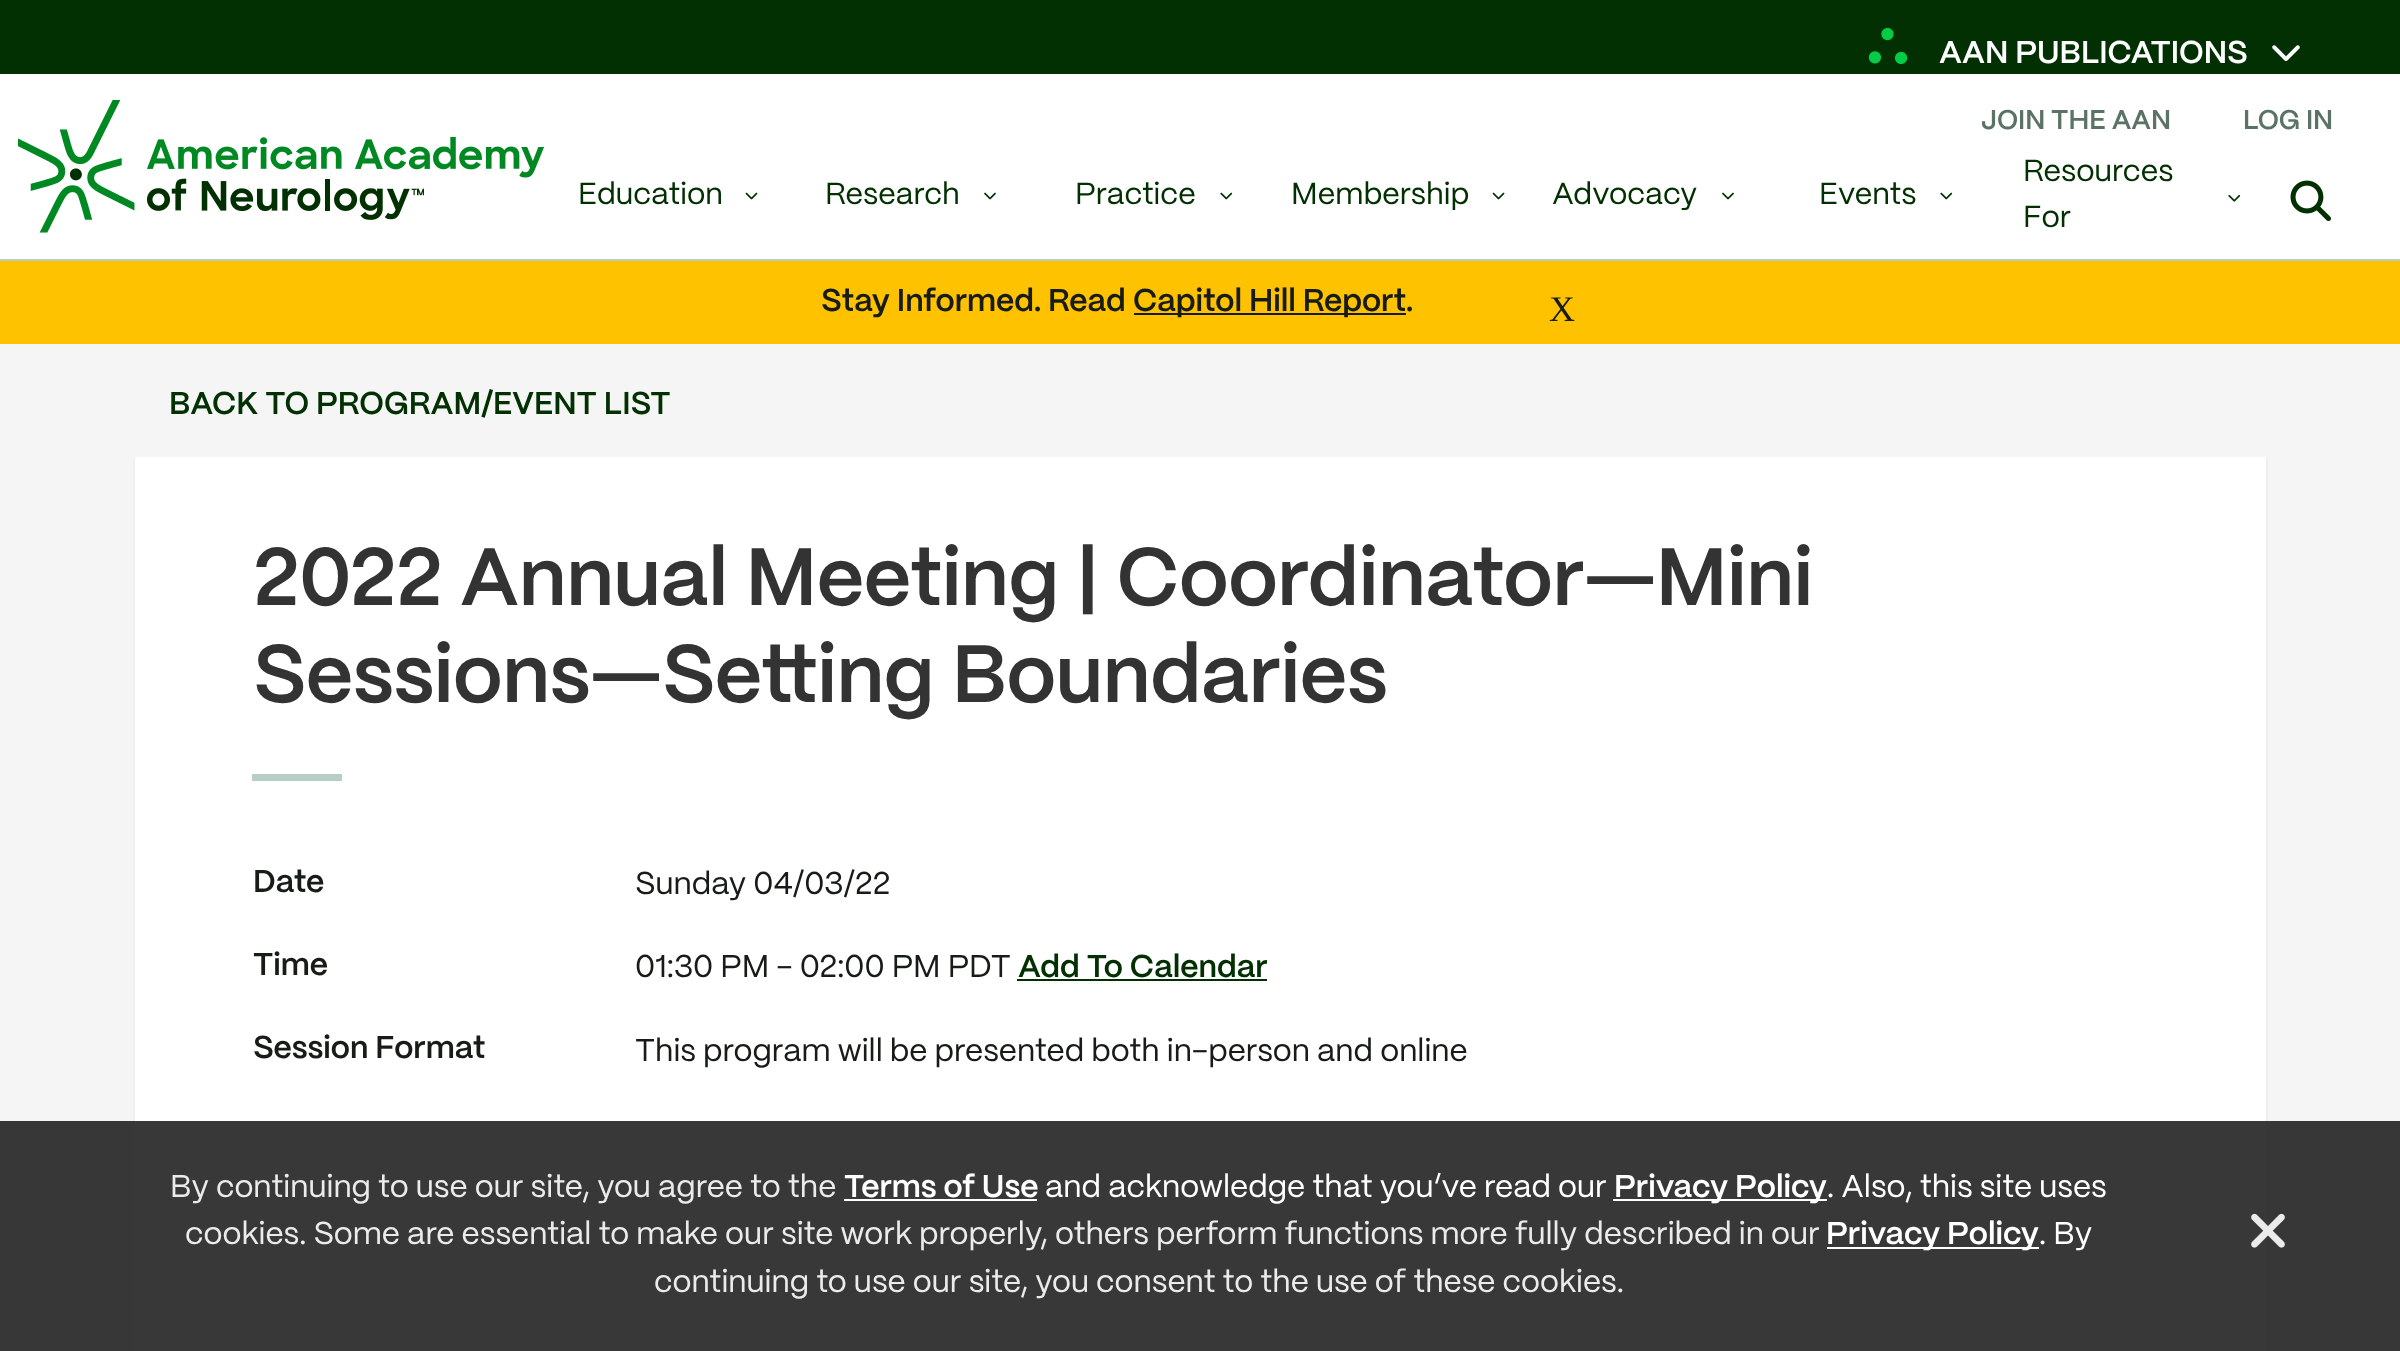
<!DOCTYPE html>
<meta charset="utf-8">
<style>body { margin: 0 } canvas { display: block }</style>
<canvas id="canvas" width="2400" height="1351"></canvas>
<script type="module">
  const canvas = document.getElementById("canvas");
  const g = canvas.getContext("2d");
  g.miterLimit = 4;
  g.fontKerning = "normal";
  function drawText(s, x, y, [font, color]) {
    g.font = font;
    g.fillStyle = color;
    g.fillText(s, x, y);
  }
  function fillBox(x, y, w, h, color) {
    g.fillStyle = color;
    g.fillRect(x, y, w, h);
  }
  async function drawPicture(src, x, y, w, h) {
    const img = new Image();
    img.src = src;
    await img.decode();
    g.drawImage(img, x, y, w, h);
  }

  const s1 = ["600 31.5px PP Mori", "#FFFFFF"];
  const s2 = ["600 27px PP Mori", "#5B7365"];
  const s3 = ["30.5px PP Mori", "#023002"];
  const s4 = ["600 31.5px PP Mori", "#171C17"];
  const s5 = ["36px Liberation Serif", "#171C17"];
  const s6 = ["600 31.5px PP Mori", "#023002"];
  const s7 = ["600 81px PP Mori", "#333333"];
  const s8 = ["31.5px PP Mori", "#171C17"];
  const s9 = ["31.5px PP Mori", "#EBEBEB"];
  const s10 = ["31.5px PP Mori", "#FFFFFF"];

  fillBox(0, 0, 2400, 1351, "#F5F5F5");
  fillBox(0, 74, 2400, 185, "#FFFFFF");
  fillBox(0, 259, 2400, 2, "#B8CEC4");
  fillBox(0, 0, 2400, 74, "#023002");
  await drawPicture("pic1.png", 1868, 27, 40, 38);
  drawText("AAN PUBLICATIONS", 1939, 63, s1);
  await drawPicture("pic2.png", 2272, 45, 28, 16);
  await drawPicture("pic3.png", 18, 100, 526, 133);
  drawText("JOIN THE AAN", 1981, 129, s2);
  drawText("LOG IN", 2243, 129, s2);
  drawText("Education", 578, 204, s3);
  await drawPicture("pic4.png", 745, 192, 13, 8);
  drawText("Research", 825, 204, s3);
  await drawPicture("pic5.png", 984, 192, 12, 8);
  drawText("Practice", 1075, 204, s3);
  await drawPicture("pic6.png", 1220, 192, 13, 8);
  drawText("Membership", 1291, 204, s3);
  await drawPicture("pic4.png", 1492, 192, 13, 8);
  drawText("Advocacy", 1552, 204, s3);
  await drawPicture("pic5.png", 1722, 192, 12, 8);
  drawText("Events", 1819, 204, s3);
  await drawPicture("pic6.png", 1940, 192, 13, 8);
  drawText("Resources", 2023, 181, s3);
  await drawPicture("pic7.png", 2228, 195, 13, 7);
  drawText("For", 2023, 227, s3);
  await drawPicture("pic8.png", 2290, 180, 41, 41);
  fillBox(0, 261, 2400, 83, "#FFC200");
  drawText("Stay Informed. Read", 821, 311, s4);
  fillBox(1134, 313, 272, 2, "#171C17");
  drawText("Capitol Hill Report.", 1133, 311, s4);
  drawText("X", 1549, 321, s5);
  drawText("BACK TO PROGRAM/EVENT LIST", 169, 414, s6);
  fillBox(135, 457, 2131, 894, "#FFFFFF");
  fillBox(2266, 457, 2, 894, "#EFEFEF");
  fillBox(133, 457, 2, 894, "#EFEFEF");
  drawText("2022 Annual Meeting | Coordinator—Mini", 253, 605, s7);
  drawText("Sessions—Setting Boundaries", 253, 702, s7);
  fillBox(252, 774, 90, 7, "#B8CEC4");
  drawText("Date", 253, 892, s4);
  drawText("Sunday 04/03/22", 635, 894, s8);
  drawText("Time", 253, 975, s4);
  drawText("01:30 PM - 02:00 PM PDT", 635, 977, s8);
  drawText("Add To Calendar", 1018, 977, s6);
  fillBox(1017, 979, 250, 2, "#023002");
  drawText("Session Format", 253, 1058, s4);
  drawText("This program will be presented both in-person and online", 635, 1061, s8);
  fillBox(0, 1121, 2400, 230, "rgba(34, 34, 34, 0.9)");
  drawText("By continuing to use our site, you agree to the", 170, 1197, s9);
  drawText("Terms of Use", 844, 1197, s1);
  fillBox(844, 1199, 193, 2, "#FFFFFF");
  drawText("and acknowledge that you’ve read our", 1045, 1197, s10);
  fillBox(1613, 1199, 214, 2, "#FFFFFF");
  drawText("Privacy Policy", 1614, 1197, s1);
  drawText(". Also, this site uses", 1827, 1197, s10);
  drawText("cookies. Some are essential to make our site work properly, others perform functions more fully described in our", 185, 1244, s9);
  fillBox(1827, 1247, 212, 2, "#FFFFFF");
  drawText("Privacy Policy", 1826, 1244, s1);
  drawText(". By", 2039, 1244, s10);
  drawText("continuing to use our site, you consent to the use of these cookies.", 654, 1292, s9);
  await drawPicture("pic9.png", 2251, 1213, 34, 35);
</script>
